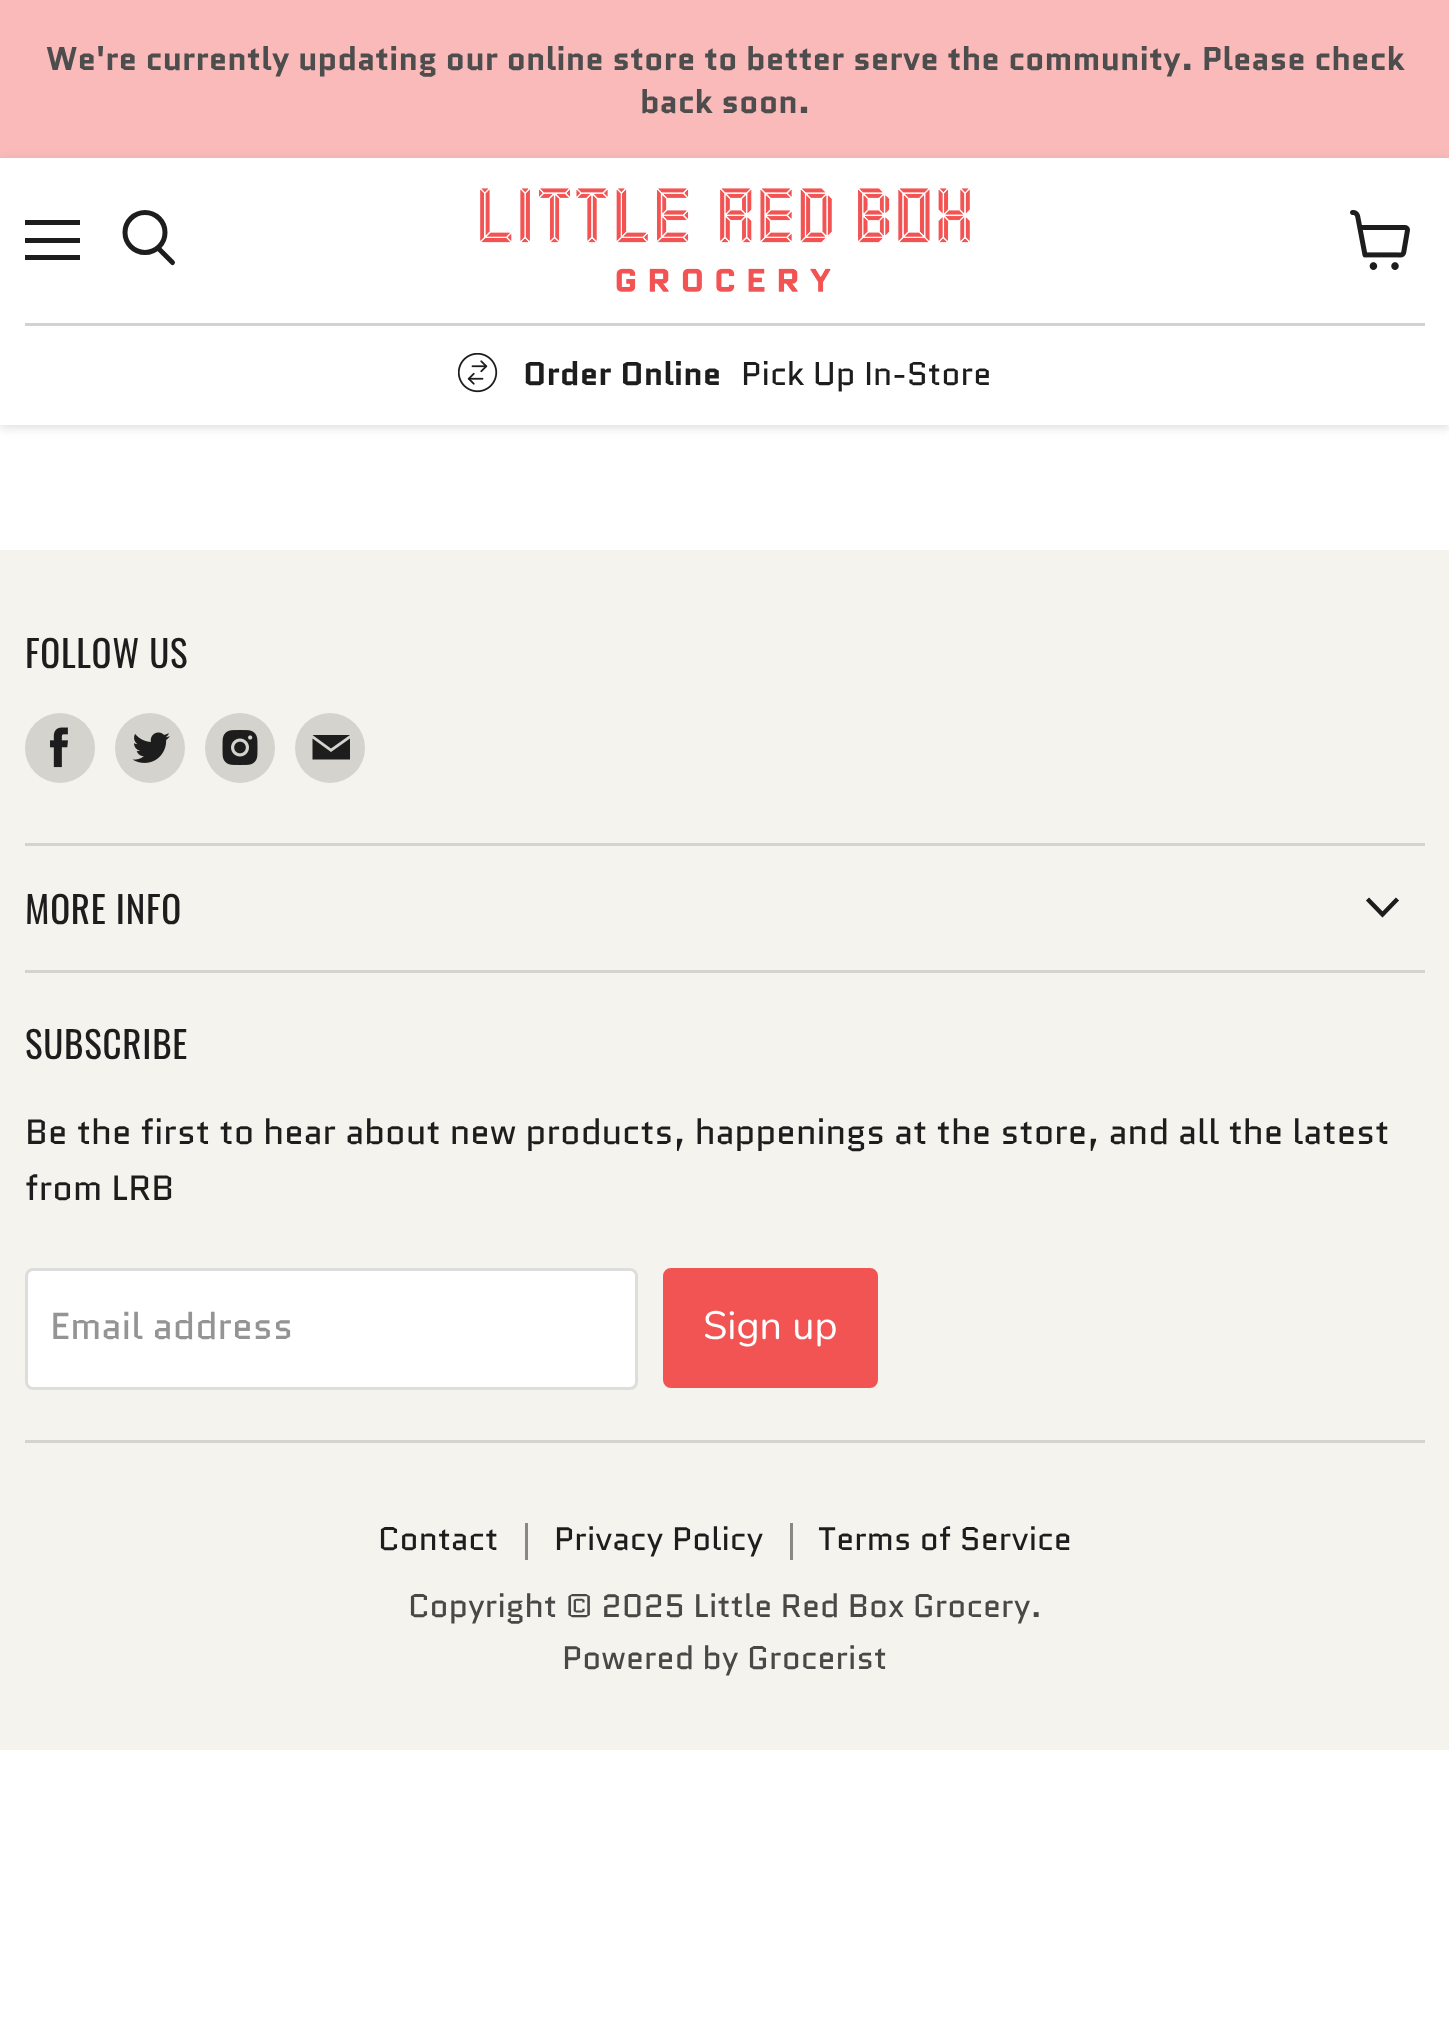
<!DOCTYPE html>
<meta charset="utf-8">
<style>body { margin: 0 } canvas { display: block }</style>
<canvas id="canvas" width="1449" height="2024"></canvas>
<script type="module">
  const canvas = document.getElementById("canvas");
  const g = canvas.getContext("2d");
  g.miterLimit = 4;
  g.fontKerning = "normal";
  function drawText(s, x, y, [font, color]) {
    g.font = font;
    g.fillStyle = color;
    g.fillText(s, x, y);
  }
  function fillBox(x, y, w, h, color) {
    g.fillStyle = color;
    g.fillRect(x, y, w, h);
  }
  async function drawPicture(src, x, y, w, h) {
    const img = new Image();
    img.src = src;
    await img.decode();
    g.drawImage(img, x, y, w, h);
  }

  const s1 = ["bold 32.8px Quantico", "#4D4D4D"];
  const s2 = ["bold 32.8px Quantico", "#1D1D1D"];
  const s3 = ["32.8px Quantico", "#1D1D1D"];
  const s4 = ["37px Oswald", "#1D1D1D"];
  const s5 = ["35.15px Quantico", "#1D1D1D"];
  const s6 = ["37.5px Quantico", "#949494"];
  const s7 = ["39.5px Nunito", "#FFFFFF"];
  const s8 = ["32.5px Quantico", "#1D1D1D"];
  const s9 = ["32.5px Quantico", "#484847"];

  fillBox(0, 0, 1449, 2024, "#FFFFFF");
  fillBox(0, 0, 1449, 158, "#FABABA");
  g.wordSpacing = "-0.1px";
  drawText("We're currently updating our online store to better serve the community. Please check", 46, 70, s1);
  g.wordSpacing = "0px";
  drawText("back soon.", 640, 113, s1);
  g.fillStyle = "rgba(128, 128, 128, 0.25)";
  g.filter = "blur(5px)";
  g.beginPath();
  g.rect(0, 160, 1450, 268);
  g.fill();
  g.filter = "none";
  fillBox(0, 158, 1449, 267, "#FFFFFF");
  fillBox(25, 220, 55, 5, "#1D1D1D");
  fillBox(25, 238, 55, 5, "#1D1D1D");
  fillBox(25, 255, 55, 5, "#1D1D1D");
  g.beginPath();
  g.moveTo(172.5, 262.5);
  g.lineTo(159, 249);
  g.strokeStyle = "#1D1D1D";
  g.lineWidth = 5;
  g.lineCap = "round";
  g.stroke();
  g.beginPath();
  g.arc(145, 232.5, 20, 0, Math.PI * 2);
  g.stroke();
  await drawPicture("pic1.png", 1350, 210, 60, 60);
  await drawPicture("pic2.png", 480, 188, 490, 104);
  fillBox(25, 323, 1400, 3, "#D2D2D2");
  await drawPicture("pic3.png", 458, 353, 40, 40);
  drawText("Order Online", 523, 385, s2);
  drawText("Pick Up In-Store", 741, 385, s3);
  fillBox(0, 550, 1449, 1200, "#F5F3ED");
  fillBox(25, 843, 1400, 3, "#D5D3CE");
  g.letterSpacing = "0.75px";
  drawText("FOLLOW US", 25, 668, s4);
  g.fillStyle = "#D5D3CE";
  g.beginPath();
  g.arc(60, 748, 35, 0, Math.PI * 2);
  g.fill();
  await drawPicture("pic4.png", 50, 727, 18, 41);
  g.beginPath();
  g.arc(150, 748, 35, 0, Math.PI * 2);
  g.fill();
  await drawPicture("pic5.png", 132, 732, 38, 31);
  g.beginPath();
  g.arc(240, 748, 35, 0, Math.PI * 2);
  g.fill();
  await drawPicture("pic6.png", 222, 730, 36, 35);
  g.beginPath();
  g.arc(330, 748, 35, 0, Math.PI * 2);
  g.fill();
  g.fillStyle = "#1D1D1D";
  g.beginPath();
  g.moveTo(350, 735);
  g.lineTo(312.5, 735);
  g.lineTo(331, 748.5);
  g.closePath();
  g.moveTo(331, 752);
  g.lineTo(312.5, 738.5);
  g.lineTo(312.5, 759.5);
  g.lineTo(350, 759.5);
  g.lineTo(350, 738.5);
  g.closePath();
  g.fill("evenodd");
  fillBox(25, 970, 1400, 3, "#D5D3CE");
  drawText("MORE INFO", 25, 924, s4);
  g.beginPath();
  g.moveTo(1382.5, 914.5);
  g.lineTo(1396, 900.5);
  g.moveTo(1382.5, 914.5);
  g.lineTo(1369, 900.5);
  g.lineWidth = 4.4;
  g.lineCap = "square";
  g.stroke();
  fillBox(25, 1440, 1400, 3, "#D5D3CE");
  drawText("SUBSCRIBE", 25, 1059, s4);
  g.letterSpacing = "0px";
  drawText("Be the first to hear about new products, happenings at the store, and all the latest", 25, 1144, s5);
  drawText("from LRB", 25, 1200, s5);
  g.fillStyle = "#FFFFFF";
  g.beginPath();
  g.roundRect(26.5, 1269.5, 610, 119, 6.5);
  g.fill();
  g.strokeStyle = "#DDDDDD";
  g.lineWidth = 3;
  g.stroke();
  drawText("Email address", 50, 1339, s6);
  g.fillStyle = "#F25353";
  g.beginPath();
  g.roundRect(664.5, 1269.5, 212, 117, 6.5);
  g.fill();
  g.strokeStyle = "#F25353";
  g.stroke();
  drawText("Sign up", 703, 1339, s7);
  fillBox(525, 1523, 3, 37, "#898885");
  drawText("Contact", 378, 1550, s8);
  fillBox(790, 1523, 3, 37, "#898885");
  drawText("Privacy Policy", 554, 1550, s8);
  drawText("Terms of Service", 818, 1550, s8);
  drawText("Copyright © 2025 Little Red Box Grocery.", 408, 1617, s9);
  drawText("Powered by Grocerist", 562, 1669, s9);
</script>
